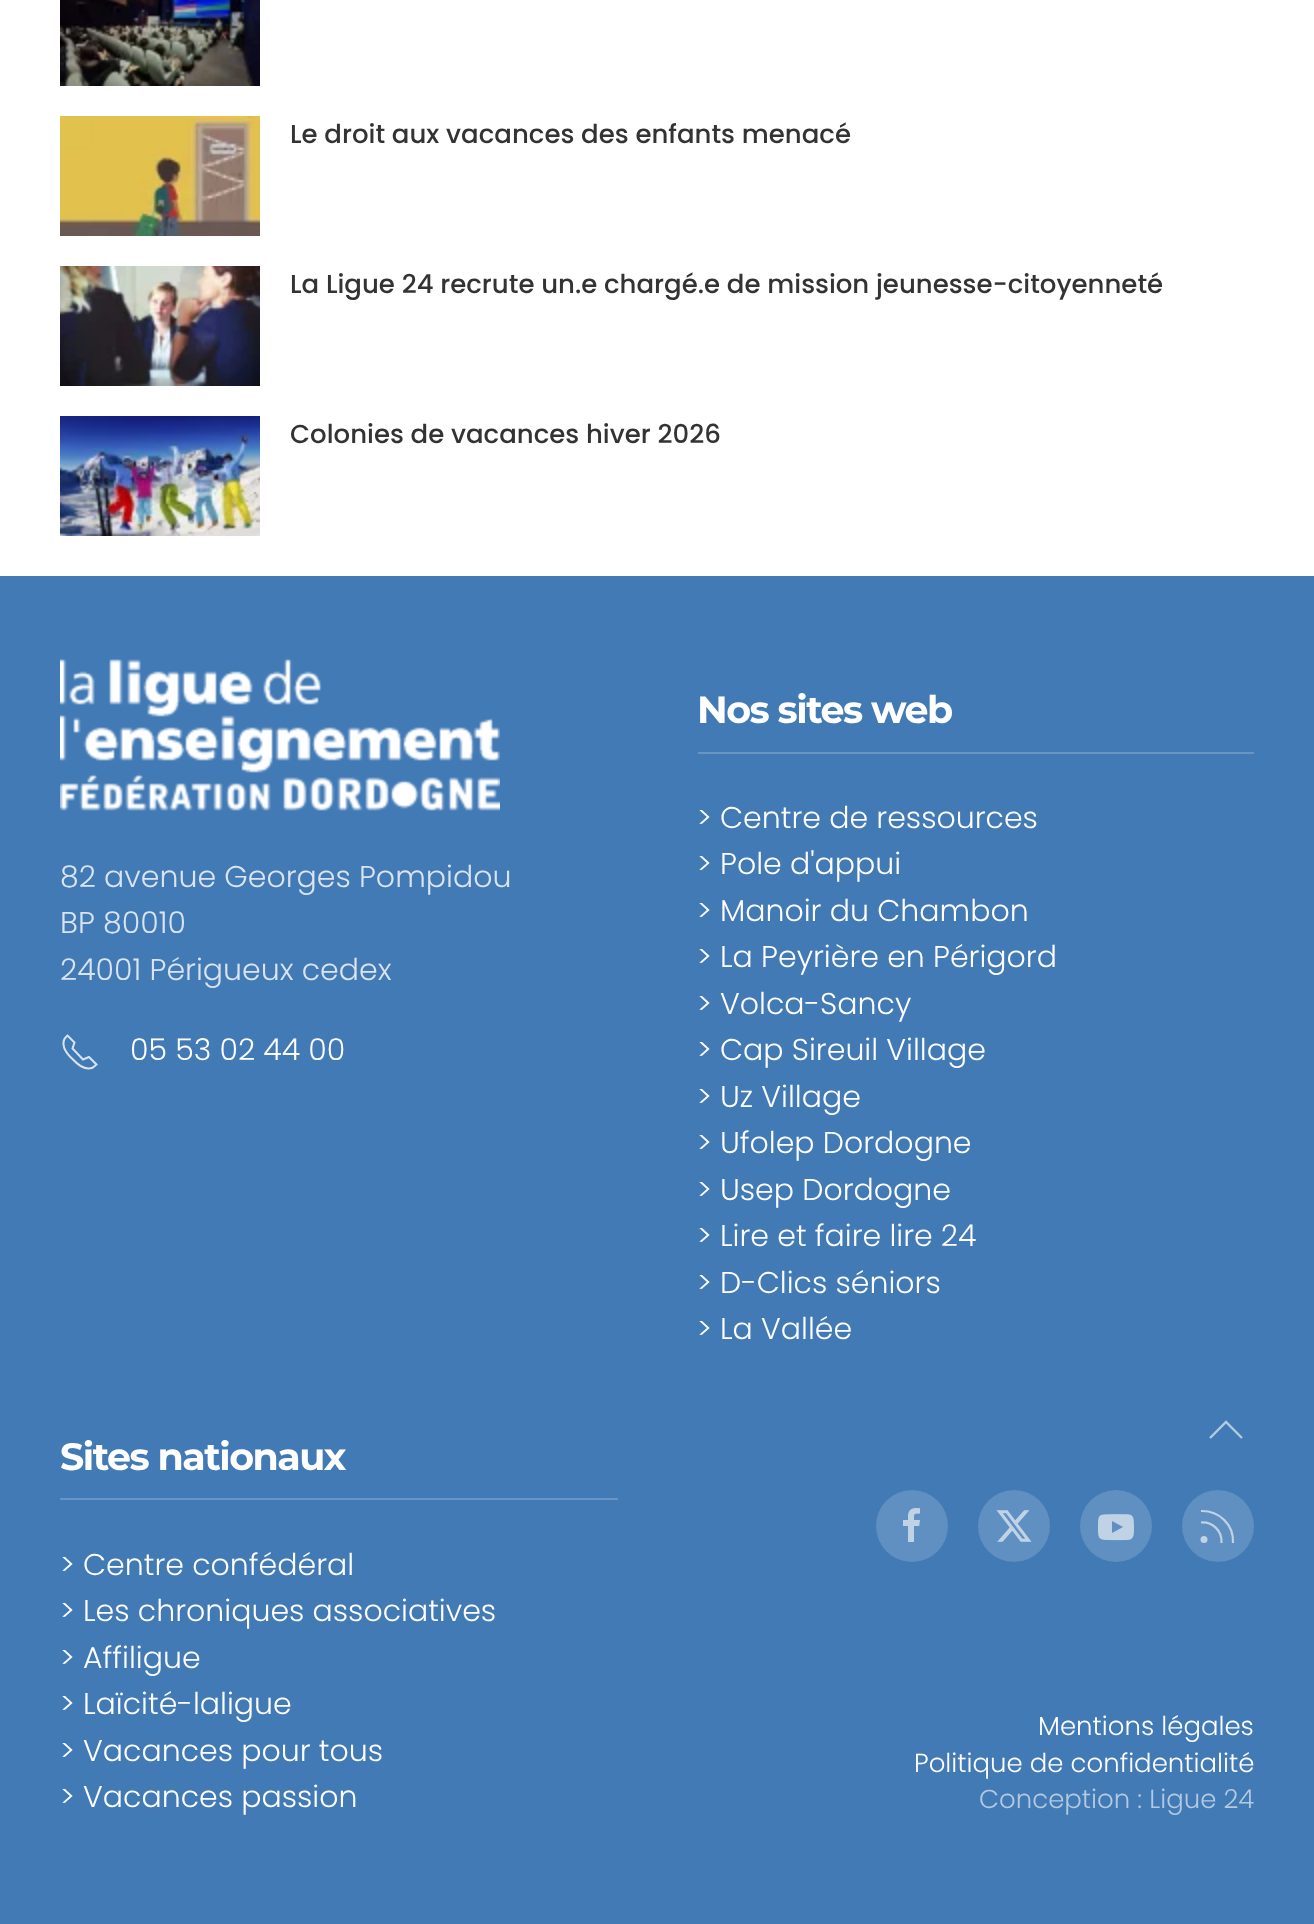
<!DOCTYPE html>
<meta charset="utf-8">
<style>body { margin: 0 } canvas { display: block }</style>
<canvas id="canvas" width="1314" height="1924"></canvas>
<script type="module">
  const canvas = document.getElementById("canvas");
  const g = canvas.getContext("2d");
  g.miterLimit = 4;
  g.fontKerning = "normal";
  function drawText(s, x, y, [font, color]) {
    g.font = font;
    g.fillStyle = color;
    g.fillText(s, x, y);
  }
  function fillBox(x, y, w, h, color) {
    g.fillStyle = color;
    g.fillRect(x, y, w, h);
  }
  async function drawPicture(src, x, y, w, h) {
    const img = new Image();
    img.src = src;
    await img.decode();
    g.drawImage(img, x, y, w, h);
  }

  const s1 = ["500 26px Poppins", "#333333"];
  const s2 = ["300 30px Poppins", "#D9E4F0"];
  const s3 = ["300 30px Poppins", "#FFFFFF"];
  const s4 = ["100 38px Montserrat", "#FFFFFF"];
  const s5 = ["300 26px Poppins", "#FFFFFF"];
  const s6 = ["300 26px Poppins", "#B3CAE1"];

  fillBox(0, 0, 1314, 1924, "#FFFFFF");
  await drawPicture("pic1.png", 60, 0, 200, 86);
  await drawPicture("pic2.png", 60, 116, 200, 120);
  drawText("Le droit aux vacances des enfants menacé", 290, 143, s1);
  await drawPicture("pic3.png", 60, 266, 200, 120);
  drawText("La Ligue 24 recrute un.e chargé.e de mission jeunesse-citoyenneté", 290, 293, s1);
  await drawPicture("pic4.png", 60, 416, 200, 120);
  drawText("Colonies de vacances hiver 2026", 290, 443, s1);
  fillBox(0, 576, 1314, 1348, "#427AB5");
  await drawPicture("pic5.png", 60, 659, 440, 152);
  drawText("82 avenue Georges Pompidou", 60, 887, s2);
  drawText("BP 80010", 60, 933, s2);
  drawText("24001 Périgueux cedex", 60, 980, s2);
  g.beginPath();
  g.moveTo(72.5, 1059);
  g.bezierCurveTo(77.5, 1064.5, 85, 1071, 93, 1067.5);
  g.lineTo(96.5, 1064.5);
  g.lineTo(89, 1057);
  g.lineTo(83, 1059.5);
  g.lineTo(72.5, 1048.5);
  g.lineTo(74.5, 1042.5);
  g.lineTo(67.5, 1035.5);
  g.bezierCurveTo(58.5, 1043, 66, 1053, 72.5, 1059);
  g.strokeStyle = "#D9E4F0";
  g.lineWidth = 2;
  g.stroke();
  drawText("05 53 02 44 00", 130, 1060, s3);
  fillBox(698, 752, 556, 2, "#6895C4");
  g.letterSpacing = "-1.5px";
  drawText("Nos sites web", 697, 723, s4);
  g.letterSpacing = "0px";
  drawText("> Centre de ressources", 697, 828, s3);
  drawText("> Pole d'appui", 697, 874, s3);
  drawText("> Manoir du Chambon", 697, 921, s3);
  drawText("> La Peyrière en Périgord", 697, 967, s3);
  drawText("> Volca-Sancy", 697, 1014, s3);
  drawText("> Cap Sireuil Village", 697, 1060, s3);
  drawText("> Uz Village", 697, 1107, s3);
  drawText("> Ufolep Dordogne", 697, 1153, s3);
  drawText("> Usep Dordogne", 697, 1200, s3);
  drawText("> Lire et faire lire 24", 697, 1246, s3);
  drawText("> D-Clics séniors", 697, 1293, s3);
  drawText("> La Vallée", 697, 1339, s3);
  fillBox(60, 1498, 558, 2, "#6895C4");
  g.letterSpacing = "-1.5px";
  drawText("Sites nationaux", 60, 1470, s4);
  g.letterSpacing = "0px";
  drawText("> Centre confédéral", 60, 1575, s3);
  drawText("> Les chroniques associatives", 60, 1621, s3);
  drawText("> Affiligue", 60, 1668, s3);
  drawText("> Laïcité-laligue", 60, 1714, s3);
  drawText("> Vacances pour tous", 60, 1761, s3);
  drawText("> Vacances passion", 60, 1807, s3);
  g.beginPath();
  g.moveTo(1210, 1438);
  g.lineTo(1226, 1422);
  g.lineTo(1242, 1438);
  g.strokeStyle = "#B3CAE1";
  g.lineWidth = 2.4;
  g.stroke();
  g.fillStyle = "#608FC1";
  g.beginPath();
  g.arc(912, 1526, 36, 0, Math.PI * 2);
  g.fill();
  await drawPicture("pic6.png", 903, 1508, 17, 34);
  g.beginPath();
  g.arc(1014, 1526, 36, 0, Math.PI * 2);
  g.fill();
  await drawPicture("pic7.png", 996, 1510, 36, 32);
  g.beginPath();
  g.arc(1116, 1526, 36, 0, Math.PI * 2);
  g.fill();
  await drawPicture("pic8.png", 1098, 1514, 36, 27);
  g.beginPath();
  g.arc(1218, 1526, 36, 0, Math.PI * 2);
  g.fill();
  g.fillStyle = "#BFD2E6";
  g.beginPath();
  g.arc(1204, 1539.5, 3.5, 0, Math.PI * 2);
  g.fill();
  g.beginPath();
  g.moveTo(1201, 1522.5);
  g.bezierCurveTo(1212.5, 1521.5, 1222.5, 1531, 1221.5, 1543);
  g.moveTo(1201, 1511);
  g.bezierCurveTo(1219, 1510.5, 1234, 1524.5, 1233, 1543);
  g.strokeStyle = "#BFD2E6";
  g.lineWidth = 2.2;
  g.stroke();
  drawText("Mentions légales", 1038, 1735, s5);
  drawText("Politique de confidentialité", 914, 1772, s5);
  drawText("Conception : Ligue 24", 979, 1808, s6);
</script>
